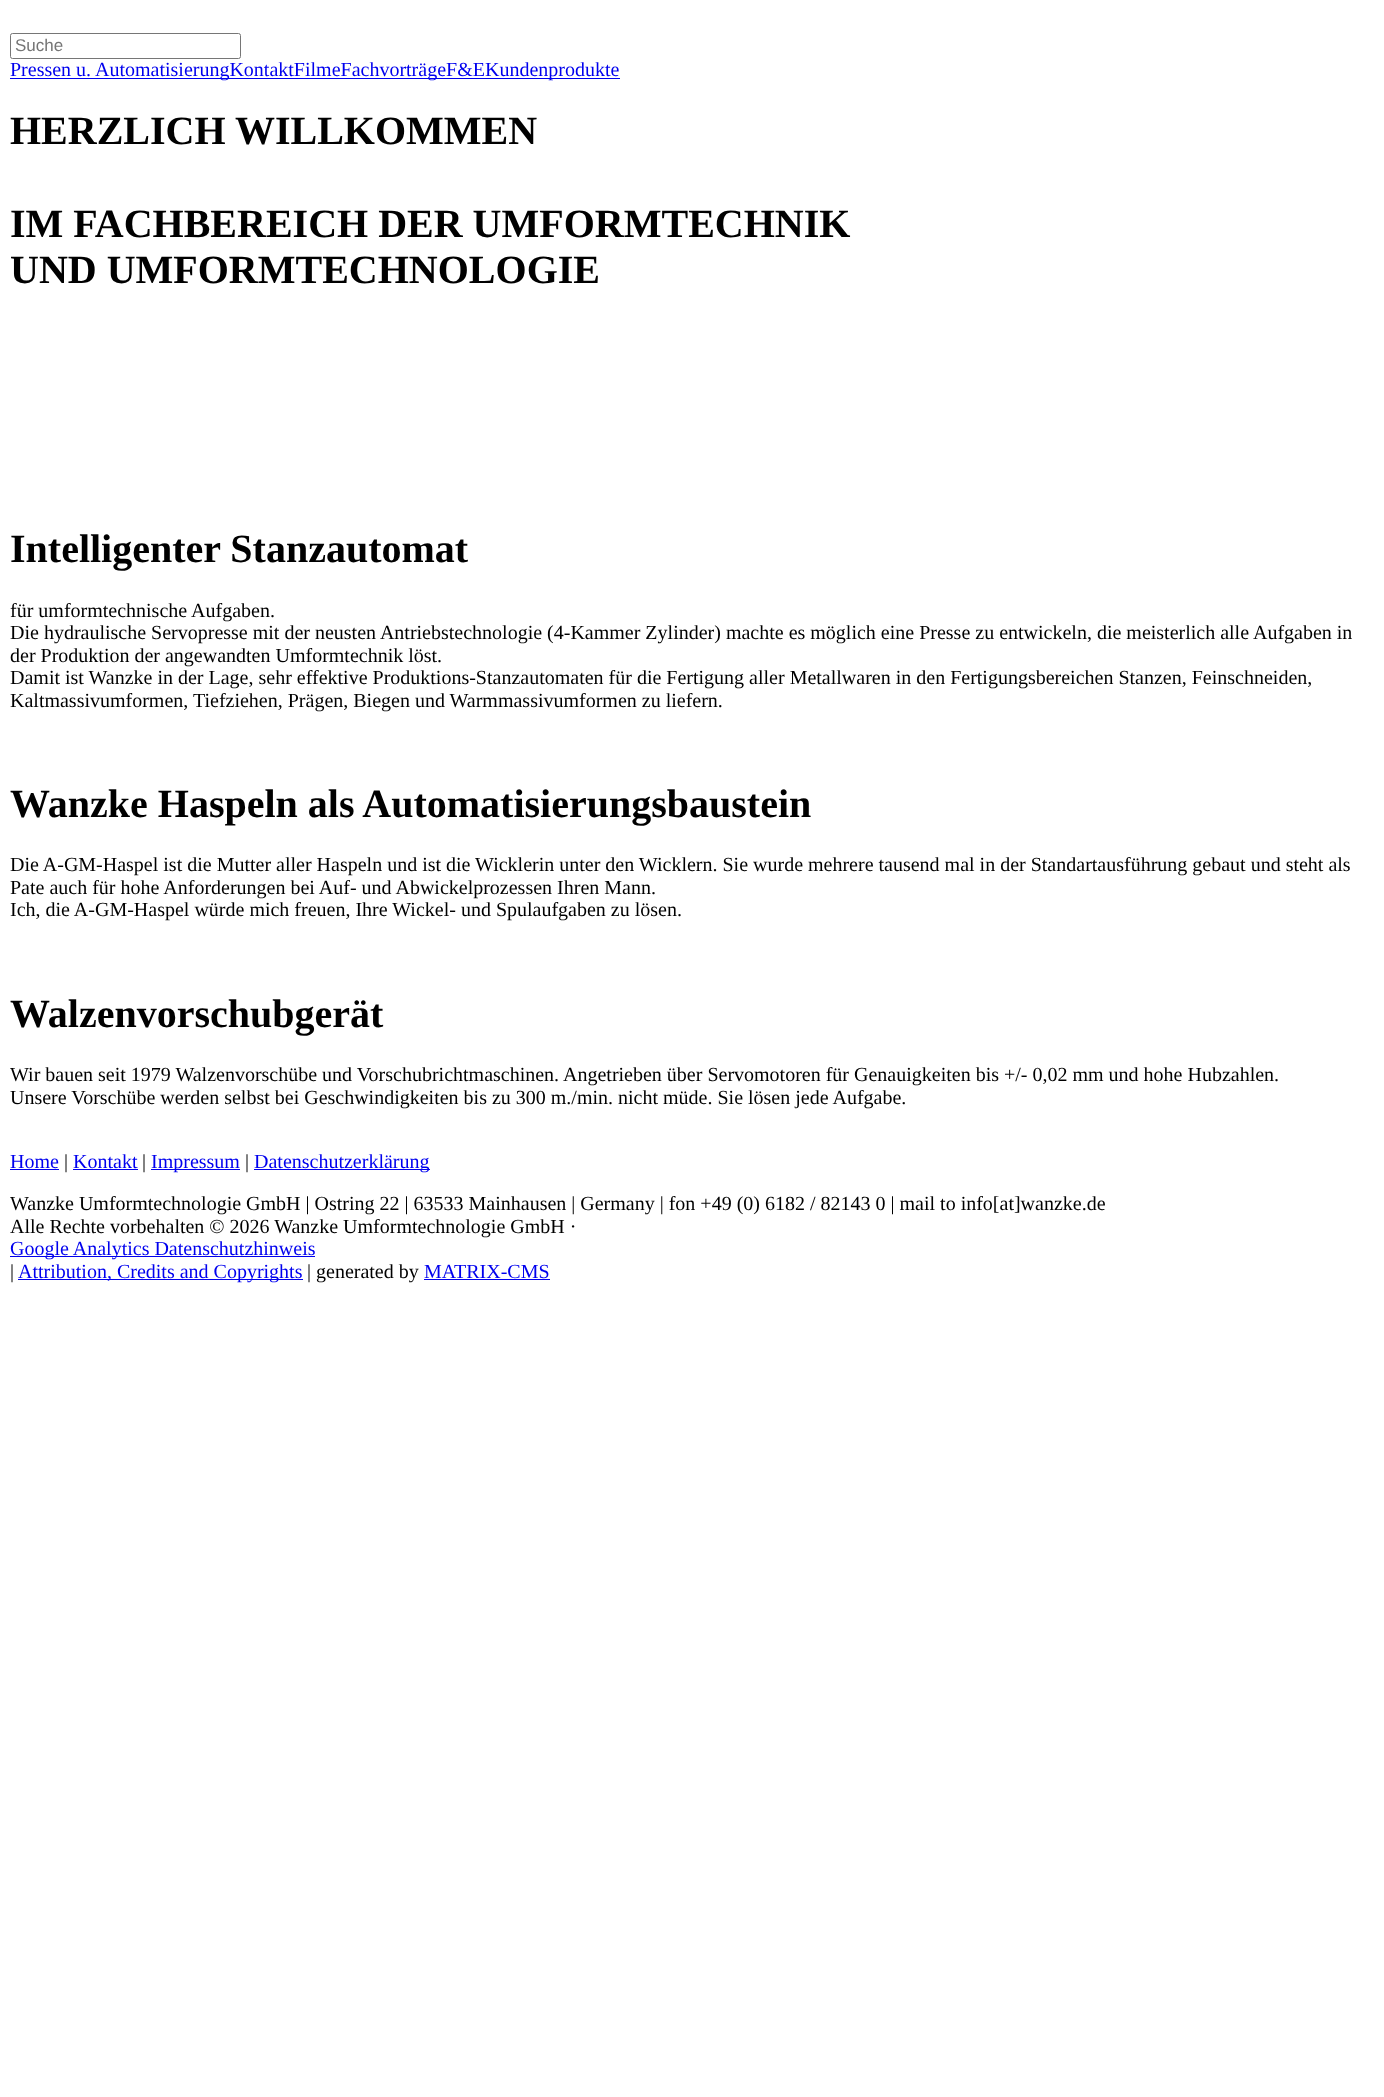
<!DOCTYPE html>
<meta charset="utf-8">
<style>body { margin: 0 } canvas { display: block }</style>
<canvas id="canvas" width="1384" height="2097"></canvas>
<script type="module">
  const canvas = document.getElementById("canvas");
  const g = canvas.getContext("2d");
  g.miterLimit = 4;
  g.fontKerning = "normal";
  function drawText(s, x, y, [font, color]) {
    g.font = font;
    g.fillStyle = color;
    g.fillText(s, x, y);
  }
  function fillBox(x, y, w, h, color) {
    g.fillStyle = color;
    g.fillRect(x, y, w, h);
  }

  const s1 = ["17px Liberation Sans", "#757575"];
  const s2 = ["20px Liberation Serif", "#0000EE"];
  const s3 = ["bold 40px Liberation Serif", "#000000"];
  const s4 = ["20px Liberation Serif", "#000000"];

  fillBox(0, 0, 1384, 2097, "#FFFFFF");
  g.beginPath();
  g.roundRect(10.5, 33.5, 230, 25, 2);
  g.strokeStyle = "#767676";
  g.stroke();
  drawText("Suche", 15, 51, s1);
  fillBox(10, 78, 610, 1, "#0000EE");
  drawText("Pressen u. AutomatisierungKontaktFilmeFachvorträgeF&EKundenprodukte", 10, 76, s2);
  drawText("HERZLICH WILLKOMMEN", 10, 144, s3);
  drawText("IM FACHBEREICH DER UMFORMTECHNIK", 10, 237, s3);
  drawText("UND UMFORMTECHNOLOGIE", 10, 283, s3);
  drawText("Intelligenter Stanzautomat", 10, 562, s3);
  drawText("für umformtechnische Aufgaben.", 10, 617, s4);
  drawText("Die hydraulische Servopresse mit der neusten Antriebstechnologie (4-Kammer Zylinder) machte es möglich eine Presse zu entwickeln, die meisterlich alle Aufgaben in", 10, 639, s4);
  drawText("der Produktion der angewandten Umformtechnik löst.", 10, 662, s4);
  drawText("Damit ist Wanzke in der Lage, sehr effektive Produktions-Stanzautomaten für die Fertigung aller Metallwaren in den Fertigungsbereichen Stanzen, Feinschneiden,", 10, 684, s4);
  drawText("Kaltmassivumformen, Tiefziehen, Prägen, Biegen und Warmmassivumformen zu liefern.", 10, 707, s4);
  drawText("Wanzke Haspeln als Automatisierungsbaustein", 10, 817, s3);
  drawText("Die A-GM-Haspel ist die Mutter aller Haspeln und ist die Wicklerin unter den Wicklern. Sie wurde mehrere tausend mal in der Standartausführung gebaut und steht als", 10, 871, s4);
  drawText("Pate auch für hohe Anforderungen bei Auf- und Abwickelprozessen Ihren Mann.", 10, 894, s4);
  drawText("Ich, die A-GM-Haspel würde mich freuen, Ihre Wickel- und Spulaufgaben zu lösen.", 10, 916, s4);
  drawText("Walzenvorschubgerät", 10, 1027, s3);
  drawText("Wir bauen seit 1979 Walzenvorschübe und Vorschubrichtmaschinen. Angetrieben über Servomotoren für Genauigkeiten bis +/- 0,02 mm und hohe Hubzahlen.", 10, 1081, s4);
  drawText("Unsere Vorschübe werden selbst bei Geschwindigkeiten bis zu 300 m./min. nicht müde. Sie lösen jede Aufgabe.", 10, 1104, s4);
  drawText("Home", 10, 1168, s2);
  fillBox(10, 1169, 49, 1, "#0000EE");
  drawText("|", 64, 1168, s4);
  drawText("Kontakt", 73, 1168, s2);
  fillBox(73, 1169, 65, 1, "#0000EE");
  drawText("|", 142, 1168, s4);
  fillBox(151, 1169, 89, 1, "#0000EE");
  drawText("Impressum", 151, 1168, s2);
  drawText("|", 245, 1168, s4);
  fillBox(254, 1169, 176, 1, "#0000EE");
  drawText("Datenschutzerklärung", 254, 1168, s2);
  drawText("Wanzke Umformtechnologie GmbH | Ostring 22 | 63533 Mainhausen | Germany | fon +49 (0) 6182 / 82143 0 | mail to info[at]wanzke.de", 10, 1210, s4);
  drawText("Alle Rechte vorbehalten © 2026 Wanzke Umformtechnologie GmbH ·", 10, 1233, s4);
  fillBox(10, 1256, 305, 1, "#0000EE");
  drawText("Google Analytics Datenschutzhinweis", 10, 1255, s2);
  drawText("|", 10, 1278, s4);
  fillBox(18, 1279, 285, 1, "#0000EE");
  drawText("Attribution, Credits and Copyrights", 18, 1278, s2);
  drawText("| generated by", 307, 1278, s4);
  drawText("MATRIX-CMS", 424, 1278, s2);
  fillBox(424, 1279, 126, 1, "#0000EE");
</script>
